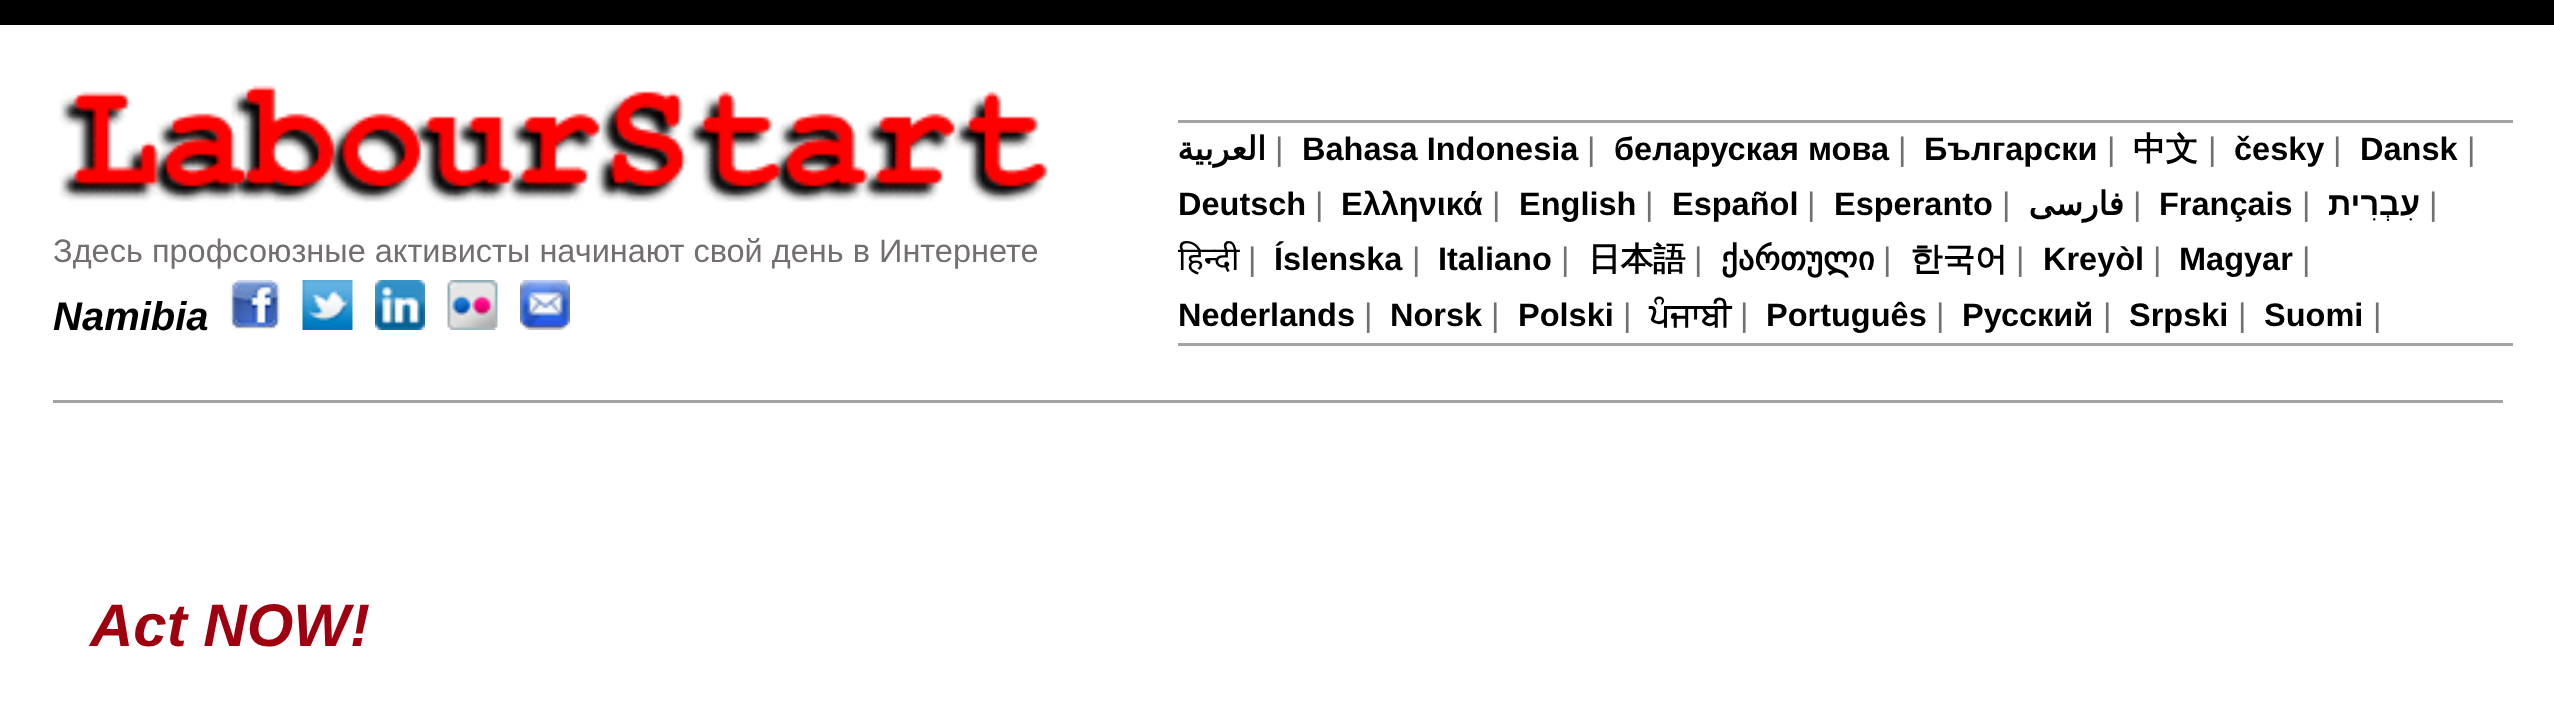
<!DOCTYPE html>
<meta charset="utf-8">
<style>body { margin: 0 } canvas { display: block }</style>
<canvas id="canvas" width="2554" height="720"></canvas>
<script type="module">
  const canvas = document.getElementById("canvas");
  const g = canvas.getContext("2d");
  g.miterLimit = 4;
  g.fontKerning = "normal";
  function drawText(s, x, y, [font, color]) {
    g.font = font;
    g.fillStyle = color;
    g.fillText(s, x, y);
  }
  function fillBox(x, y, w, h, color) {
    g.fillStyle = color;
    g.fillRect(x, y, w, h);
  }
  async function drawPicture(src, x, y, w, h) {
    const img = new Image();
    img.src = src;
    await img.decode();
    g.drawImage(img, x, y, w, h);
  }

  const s1 = ["32.5px Liberation Sans", "#736F6E"];
  const s2 = ["italic bold 40px Liberation Sans", "#000000"];
  const s3 = ["bold 32.5px DejaVu Sans", "#000000"];
  const s4 = ["bold 32.5px Liberation Sans", "#000000"];
  const s5 = ["bold 32.5px WenQuanYi Zen Hei", "#000000"];
  const s6 = ["32.5px Noto Sans", "#000000"];
  const s7 = ["bold 32.5px FreeSans", "#000000"];
  const s8 = ["italic bold 60px Liberation Sans", "#9F000F"];

  fillBox(0, 0, 2554, 720, "#FFFFFF");
  fillBox(0, 0, 2554, 25, "#000000");
  await drawPicture("pic1.png", 59, 85, 989, 118);
  drawText("Здесь профсоюзные активисты начинают свой день в Интернете", 53, 262, s1);
  drawText("Namibia", 53, 330, s2);
  await drawPicture("pic2.png", 230, 280, 50, 50);
  await drawPicture("pic3.png", 302, 280, 51, 50);
  await drawPicture("pic4.png", 375, 280, 50, 50);
  await drawPicture("pic5.png", 447, 280, 51, 50);
  await drawPicture("pic6.png", 520, 280, 50, 50);
  fillBox(1178, 120, 1335, 3, "#A3A3A3");
  fillBox(1178, 343, 1335, 3, "#A3A3A3");
  g.direction = "rtl";
  drawText("العربية", 1266, 160, s3);
  g.direction = "ltr";
  drawText("|", 1275, 160, s1);
  drawText("Bahasa Indonesia", 1302, 160, s4);
  drawText("|", 1587, 160, s1);
  drawText("беларуская мова", 1614, 160, s4);
  drawText("|", 1898, 160, s1);
  drawText("Български", 1924, 160, s4);
  drawText("|", 2107, 160, s1);
  drawText("中文", 2133, 160, s5);
  drawText("|", 2208, 160, s1);
  drawText("česky", 2234, 160, s4);
  drawText("|", 2333, 160, s1);
  drawText("Dansk", 2360, 160, s4);
  drawText("|", 2467, 160, s1);
  drawText("Deutsch", 1178, 215, s4);
  drawText("|", 1315, 215, s1);
  drawText("Ελληνικά", 1341, 215, s4);
  drawText("|", 1492, 215, s1);
  drawText("English", 1519, 215, s4);
  drawText("|", 1645, 215, s1);
  drawText("Español", 1672, 215, s4);
  drawText("|", 1807, 215, s1);
  drawText("Esperanto", 1834, 215, s4);
  drawText("|", 2002, 215, s1);
  g.direction = "rtl";
  drawText("فارسی", 2124, 215, s3);
  g.direction = "ltr";
  drawText("|", 2133, 215, s1);
  drawText("Français", 2159, 215, s4);
  drawText("|", 2302, 215, s1);
  g.direction = "rtl";
  drawText("עִבְרִית", 2420, 215, s4);
  g.direction = "ltr";
  drawText("|", 2429, 215, s1);
  drawText("हिन्दी", 1178, 270, s6);
  drawText("|", 1248, 270, s1);
  drawText("Íslenska", 1274, 270, s4);
  drawText("|", 1412, 270, s1);
  drawText("Italiano", 1438, 270, s4);
  drawText("|", 1561, 270, s1);
  drawText("日本語", 1588, 270, s5);
  drawText("|", 1694, 270, s1);
  drawText("ქართული", 1721, 270, s3);
  drawText("|", 1883, 270, s1);
  drawText("한국어", 1910, 270, s5);
  drawText("|", 2016, 270, s1);
  drawText("Kreyòl", 2043, 270, s4);
  drawText("|", 2153, 270, s1);
  drawText("Magyar", 2179, 270, s4);
  drawText("|", 2302, 270, s1);
  drawText("Nederlands", 1178, 326, s4);
  drawText("|", 1364, 326, s1);
  drawText("Norsk", 1390, 326, s4);
  drawText("|", 1491, 326, s1);
  drawText("Polski", 1518, 326, s4);
  drawText("|", 1623, 326, s1);
  drawText("ਪੰਜਾਬੀ", 1649, 326, s7);
  drawText("|", 1740, 326, s1);
  drawText("Português", 1766, 326, s4);
  drawText("|", 1936, 326, s1);
  drawText("Русский", 1962, 326, s4);
  drawText("|", 2103, 326, s1);
  drawText("Srpski", 2129, 326, s4);
  drawText("|", 2238, 326, s1);
  drawText("Suomi", 2264, 326, s4);
  drawText("|", 2373, 326, s1);
  fillBox(53, 400, 2450, 3, "#A3A3A3");
  drawText("Act NOW!", 90, 646, s8);
</script>
